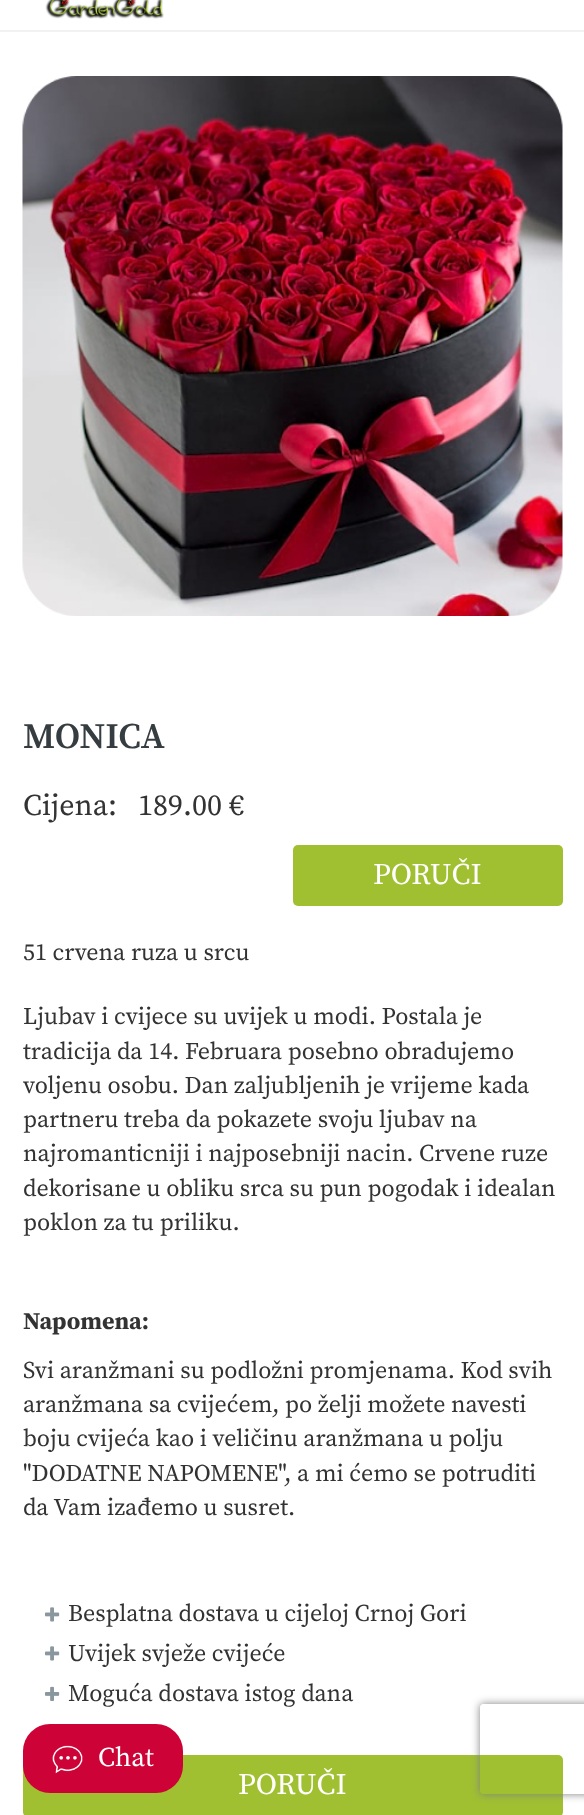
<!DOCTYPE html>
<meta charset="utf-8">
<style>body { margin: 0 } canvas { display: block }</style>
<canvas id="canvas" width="584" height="1815"></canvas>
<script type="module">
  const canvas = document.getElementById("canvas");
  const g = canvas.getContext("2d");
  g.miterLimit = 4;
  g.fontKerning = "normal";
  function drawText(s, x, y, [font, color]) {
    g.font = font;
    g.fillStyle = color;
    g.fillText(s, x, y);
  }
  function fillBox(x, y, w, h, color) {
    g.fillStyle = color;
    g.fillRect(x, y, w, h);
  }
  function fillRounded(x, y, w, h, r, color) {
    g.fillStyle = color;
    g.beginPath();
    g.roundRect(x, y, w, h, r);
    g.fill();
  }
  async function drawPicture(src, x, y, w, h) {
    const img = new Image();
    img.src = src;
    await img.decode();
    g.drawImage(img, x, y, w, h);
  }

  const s1 = ["600 36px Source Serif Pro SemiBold", "#363D40"];
  const s2 = ["30px Source Serif Pro", "#333333"];
  const s3 = ["30px Source Serif Pro", "#FFFFFF"];
  const s4 = ["24px Source Serif Pro", "#333333"];
  const s5 = ["bold 24px Source Serif Pro", "#333333"];
  const s6 = ["27px Source Serif Pro", "#FFFFFF"];

  fillBox(0, 0, 584, 1815, "#FFFFFF");
  fillBox(0, 30, 584, 2, "#F2F2F2");
  await drawPicture("pic1.png", 45, 0, 119, 19);
  await drawPicture("pic2.png", 22, 76, 541, 540);
  drawText("MONICA", 23, 748, s1);
  drawText("Cijena:", 23, 815, s2);
  drawText("189.00 €", 138, 815, s2);
  fillRounded(293, 845, 270, 61, 5, "#A0C031");
  drawText("PORUČI", 373, 884, s3);
  drawText("51 crvena ruza u srcu", 23, 960, s4);
  drawText("Ljubav i cvijece su uvijek u modi. Postala je", 23, 1024, s4);
  drawText("tradicija da 14. Februara posebno obradujemo", 23, 1059, s4);
  drawText("voljenu osobu. Dan zaljubljenih je vrijeme kada", 23, 1093, s4);
  drawText("partneru treba da pokazete svoju ljubav na", 23, 1127, s4);
  drawText("najromanticniji i najposebniji nacin. Crvene ruze", 23, 1161, s4);
  drawText("dekorisane u obliku srca su pun pogodak i idealan", 23, 1196, s4);
  drawText("poklon za tu priliku.", 23, 1230, s4);
  drawText("Napomena:", 23, 1329, s5);
  drawText("Svi aranžmani su podložni promjenama. Kod svih", 23, 1378, s4);
  drawText("aranžmana sa cvijećem, po želji možete navesti", 23, 1412, s4);
  drawText("boju cvijeća kao i veličinu aranžmana u polju", 23, 1446, s4);
  drawText("\"DODATNE NAPOMENE\", a mi ćemo se potruditi", 23, 1481, s4);
  drawText("da Vam izađemo u susret.", 23, 1515, s4);
  await drawPicture("pic3.png", 45, 1607, 15, 15);
  drawText("Besplatna dostava u cijeloj Crnoj Gori", 68, 1621, s4);
  await drawPicture("pic3.png", 45, 1646, 15, 15);
  drawText("Uvijek svježe cvijeće", 68, 1661, s4);
  await drawPicture("pic4.png", 45, 1686, 15, 15);
  drawText("Moguća dostava istog dana", 68, 1701, s4);
  fillRounded(23, 1755, 540, 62, 5, "#A0C031");
  drawText("PORUČI", 238, 1794, s3);
  fillRounded(23, 1724, 160, 69, 27, "#CD0236");
  await drawPicture("pic5.png", 52, 1745, 31, 29);
  drawText("Chat", 98, 1766, s6);
  g.save();
  g.beginPath();
  g.moveTo(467, 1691);
  g.lineTo(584, 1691);
  g.lineTo(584, 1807);
  g.lineTo(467, 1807);
  g.closePath();
  g.moveTo(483, 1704);
  g.lineTo(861, 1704);
  g.bezierCurveTo(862.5, 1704, 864, 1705.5, 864, 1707);
  g.lineTo(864, 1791);
  g.bezierCurveTo(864, 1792.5, 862.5, 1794, 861, 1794);
  g.lineTo(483, 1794);
  g.bezierCurveTo(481.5, 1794, 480, 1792.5, 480, 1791);
  g.lineTo(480, 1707);
  g.bezierCurveTo(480, 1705.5, 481.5, 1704, 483, 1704);
  g.closePath();
  g.clip("evenodd");
  g.fillStyle = "#808080";
  g.filter = "blur(4px)";
  g.beginPath();
  g.roundRect(480, 1704, 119, 90, 3);
  g.fill();
  g.filter = "none";
  g.restore();
</script>
